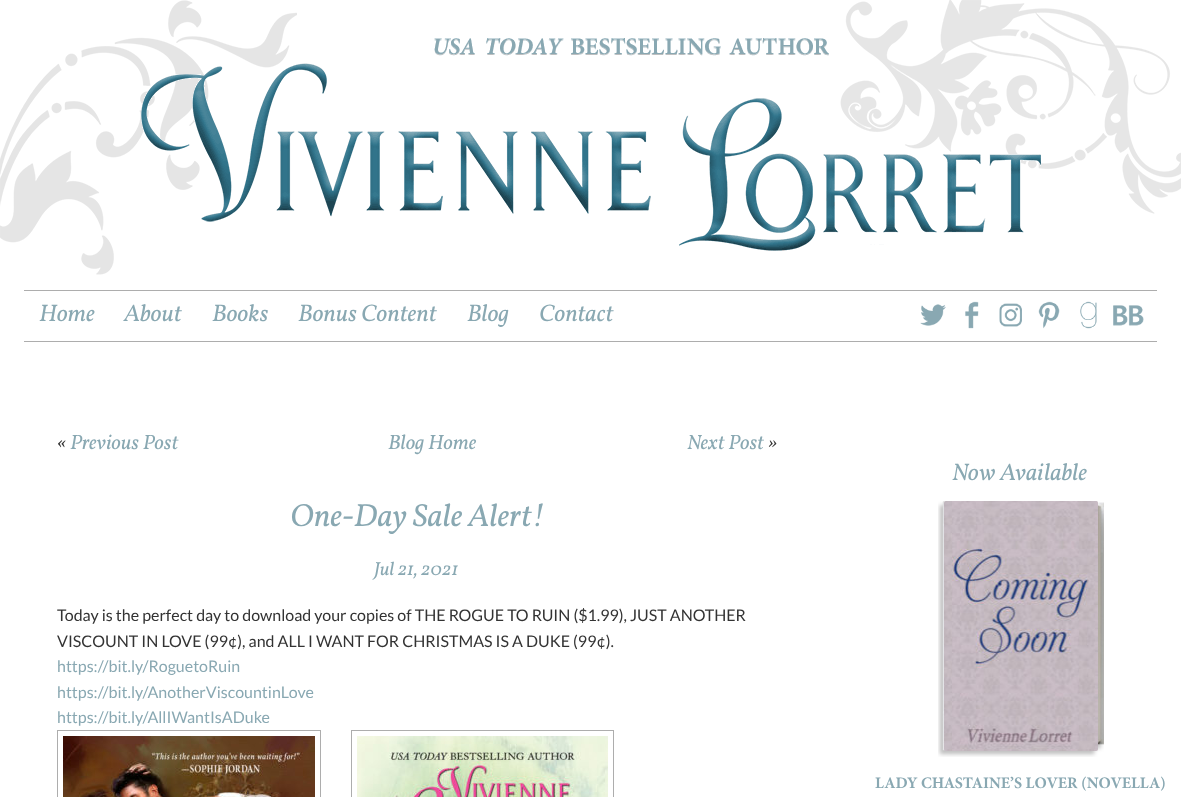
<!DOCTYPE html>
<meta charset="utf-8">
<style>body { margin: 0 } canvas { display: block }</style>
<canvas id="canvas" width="1181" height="797"></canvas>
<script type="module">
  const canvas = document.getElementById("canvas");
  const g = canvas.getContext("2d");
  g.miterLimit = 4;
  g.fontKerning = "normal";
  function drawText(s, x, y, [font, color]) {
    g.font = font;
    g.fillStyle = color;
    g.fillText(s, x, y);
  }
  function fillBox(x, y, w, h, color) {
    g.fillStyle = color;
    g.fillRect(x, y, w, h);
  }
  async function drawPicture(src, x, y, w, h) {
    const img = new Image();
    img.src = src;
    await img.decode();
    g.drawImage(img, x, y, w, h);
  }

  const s1 = ["italic 24px Vollkorn", "#89A8B2"];
  const s2 = ["italic 20.75px Vollkorn", "#333333"];
  const s3 = ["italic 20.75px Vollkorn", "#89A8B2"];
  const s4 = ["italic 32px Vollkorn", "#89A8B2"];
  const s5 = ["italic 19px Vollkorn", "#89A8B2"];
  const s6 = ["16px Lato", "#333333"];
  const s7 = ["16px Lato", "#89A8B2"];
  const s8 = ["bold 16px Minion", "#89A8B2"];

  fillBox(0, 0, 1181, 797, "#FFFFFF");
  await drawPicture("pic1.png", 0, 0, 1181, 275);
  await drawPicture("pic2.png", 141, 38, 900, 213);
  fillBox(24, 290, 1133, 1, "#ADADAD");
  fillBox(24, 341, 1133, 1, "#ADADAD");
  drawText("Home", 39, 321, s1);
  drawText("About", 124, 321, s1);
  drawText("Books", 212, 321, s1);
  drawText("Bonus Content", 298, 321, s1);
  drawText("Blog", 467, 321, s1);
  drawText("Contact", 539, 321, s1);
  await drawPicture("pic3.png", 920, 304, 26, 22);
  await drawPicture("pic4.png", 965, 301, 14, 28);
  await drawPicture("pic5.png", 999, 303, 23, 24);
  await drawPicture("pic6.png", 1038, 301, 22, 28);
  await drawPicture("pic7.png", 1080, 301, 17, 28);
  await drawPicture("pic8.png", 1113, 305, 31, 21);
  drawText("«", 57, 449, s2);
  drawText("Previous Post", 70, 449, s3);
  drawText("Blog Home", 388, 449, s3);
  drawText("Next Post", 687, 449, s3);
  drawText("»", 768, 449, s2);
  drawText("One-Day Sale Alert!", 290, 526, s4);
  drawText("Jul 21, 2021", 374, 575, s5);
  drawText("Today is the perfect day to download your copies of THE ROGUE TO RUIN ($1.99), JUST ANOTHER", 57, 621, s6);
  drawText("VISCOUNT IN LOVE (99¢), and ALL I WANT FOR CHRISTMAS IS A DUKE (99¢).", 57, 647, s6);
  drawText("https://bit.ly/RoguetoRuin", 57, 672, s7);
  drawText("https://bit.ly/AnotherViscountinLove", 57, 698, s7);
  drawText("https://bit.ly/AllIWantIsADuke", 57, 723, s7);
  g.strokeStyle = "#ADADAD";
  g.strokeRect(57.5, 730.5, 263, 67);
  await drawPicture("pic9.png", 63, 736, 252, 61);
  g.strokeRect(351.5, 730.5, 262, 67);
  await drawPicture("pic10.png", 357, 736, 251, 61);
  drawText("Now Available", 952, 480, s1);
  await drawPicture("pic11.png", 938, 501, 166, 256);
  await drawPicture("pic12.png", 944, 501, 154, 250);
  drawText("LADY CHASTAINE’S LOVER (NOVELLA)", 875, 788, s8);
</script>
